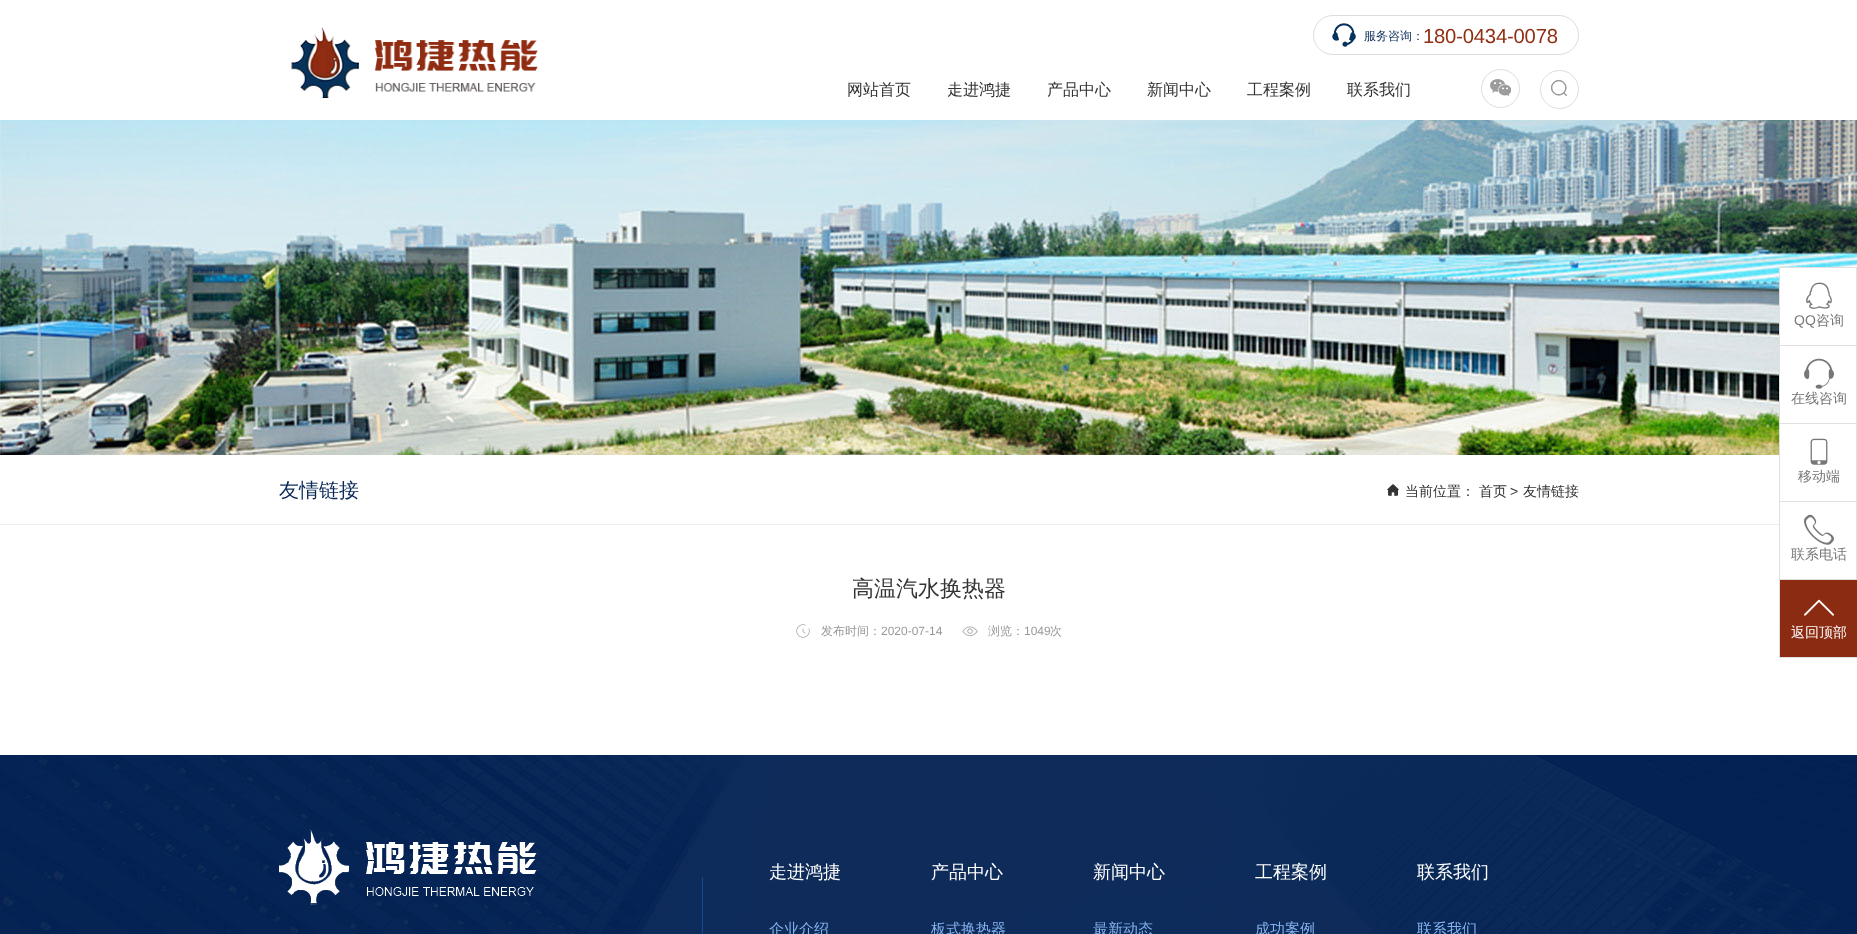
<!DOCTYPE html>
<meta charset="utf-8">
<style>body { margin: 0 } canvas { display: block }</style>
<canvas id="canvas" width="1857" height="934"></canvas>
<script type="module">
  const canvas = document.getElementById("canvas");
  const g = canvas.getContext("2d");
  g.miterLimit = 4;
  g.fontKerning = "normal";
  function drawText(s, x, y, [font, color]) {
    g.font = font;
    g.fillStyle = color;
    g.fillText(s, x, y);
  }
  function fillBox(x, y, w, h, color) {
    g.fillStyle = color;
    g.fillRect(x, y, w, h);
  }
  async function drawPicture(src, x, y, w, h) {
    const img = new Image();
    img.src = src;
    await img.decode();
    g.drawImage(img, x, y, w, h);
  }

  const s1 = ["500 12px WenQuanYi Zen Hei", "#0A2958"];
  const s2 = ["20.25px Liberation Sans", "#902E11"];
  const s3 = ["500 16px WenQuanYi Zen Hei", "#333333"];
  const s4 = ["500 20px WenQuanYi Zen Hei", "#0A2958"];
  const s5 = ["500 14px WenQuanYi Zen Hei", "#333333"];
  const s6 = ["14px Liberation Sans", "#333333"];
  const s7 = ["14px Liberation Sans", "#777777"];
  const s8 = ["500 14px WenQuanYi Zen Hei", "#777777"];
  const s9 = ["500 14px WenQuanYi Zen Hei", "#FFFFFF"];
  const s10 = ["500 22px WenQuanYi Zen Hei", "#333333"];
  const s11 = ["500 12px WenQuanYi Zen Hei", "#999999"];
  const s12 = ["12px Liberation Sans", "#999999"];
  const s13 = ["500 18px WenQuanYi Zen Hei", "#FFFFFF"];
  const s14 = ["500 15px WenQuanYi Zen Hei", "#85B3EE"];

  fillBox(0, 0, 1857, 934, "#FFFFFF");
  await drawPicture("pic1.png", 291, 27, 247, 71);
  g.beginPath();
  g.roundRect(1313.5, 15.5, 265, 39, 19.5);
  g.strokeStyle = "#DCDCDC";
  g.stroke();
  await drawPicture("pic2.png", 1332, 23, 24, 24);
  drawText("服务咨询：", 1364, 40, s1);
  g.letterSpacing = "-0.2px";
  drawText("180-0434-0078", 1423, 43, s2);
  g.letterSpacing = "0px";
  drawText("网站首页", 847, 95, s3);
  drawText("走进鸿捷", 947, 95, s3);
  drawText("产品中心", 1047, 95, s3);
  drawText("新闻中心", 1147, 95, s3);
  drawText("工程案例", 1247, 95, s3);
  drawText("联系我们", 1347, 95, s3);
  g.beginPath();
  g.arc(1500.5, 88.5, 19, 0, Math.PI * 2);
  g.strokeStyle = "#DEDEDE";
  g.stroke();
  await drawPicture("pic3.png", 1490, 79, 21, 17);
  g.beginPath();
  g.arc(1559.5, 89.5, 19, 0, Math.PI * 2);
  g.stroke();
  await drawPicture("pic4.png", 1551, 80, 16, 16);
  await drawPicture("pic5.png", 0, 120, 1857, 335);
  fillBox(0, 524, 1779, 1, "#EEEEEE");
  drawText("友情链接", 279, 497, s4);
  await drawPicture("pic6.png", 1387, 484, 12, 12);
  drawText("当前位置：", 1405, 496, s5);
  drawText("首页", 1479, 496, s5);
  drawText(">", 1510, 496, s6);
  drawText("友情链接", 1523, 496, s5);
  fillBox(1780, 268, 76, 187, "#FFFFFF");
  fillBox(1779, 267, 78, 1, "#E0E0E0");
  fillBox(1856, 267, 1, 312, "#E0E0E0");
  fillBox(1779, 267, 1, 391, "#E0E0E0");
  fillBox(1780, 345, 77, 1, "#E0E0E0");
  await drawPicture("pic7.png", 1806, 282, 26, 27);
  drawText("QQ", 1794, 325, s7);
  drawText("咨询", 1816, 325, s8);
  fillBox(1780, 423, 77, 1, "#E0E0E0");
  await drawPicture("pic8.png", 1804, 358, 30, 31);
  drawText("在线咨询", 1791, 403, s8);
  fillBox(1780, 501, 77, 1, "#E0E0E0");
  await drawPicture("pic9.png", 1810, 438, 18, 27);
  drawText("移动端", 1798, 481, s8);
  fillBox(1780, 579, 77, 1, "#E0E0E0");
  await drawPicture("pic10.png", 1804, 514, 30, 31);
  drawText("联系电话", 1791, 559, s8);
  fillBox(1780, 580, 77, 77, "#8B2B12");
  fillBox(1780, 657, 77, 1, "#E0E0E0");
  await drawPicture("pic11.png", 1804, 599, 30, 17);
  drawText("返回顶部", 1791, 637, s9);
  drawText("高温汽水换热器", 852, 596, s10);
  await drawPicture("pic12.png", 796, 624, 14, 14);
  drawText("发布时间：", 821, 635, s11);
  drawText("2020-07-14", 881, 635, s12);
  await drawPicture("pic13.png", 962, 626, 16, 11);
  drawText("浏览：", 988, 635, s11);
  drawText("1049", 1024, 635, s12);
  drawText("次", 1050, 635, s11);
  await drawPicture("pic14.png", 0, 755, 1857, 179);
  await drawPicture("pic15.png", 279, 829, 259, 76);
  fillBox(702, 877, 1, 57, "#13488D");
  drawText("走进鸿捷", 769, 878, s13);
  drawText("企业介绍", 769, 934, s14);
  drawText("产品中心", 931, 878, s13);
  drawText("板式换热器", 931, 934, s14);
  drawText("新闻中心", 1093, 878, s13);
  drawText("最新动态", 1093, 934, s14);
  drawText("工程案例", 1255, 878, s13);
  drawText("成功案例", 1255, 934, s14);
  drawText("联系我们", 1417, 878, s13);
  drawText("联系我们", 1417, 934, s14);
</script>
